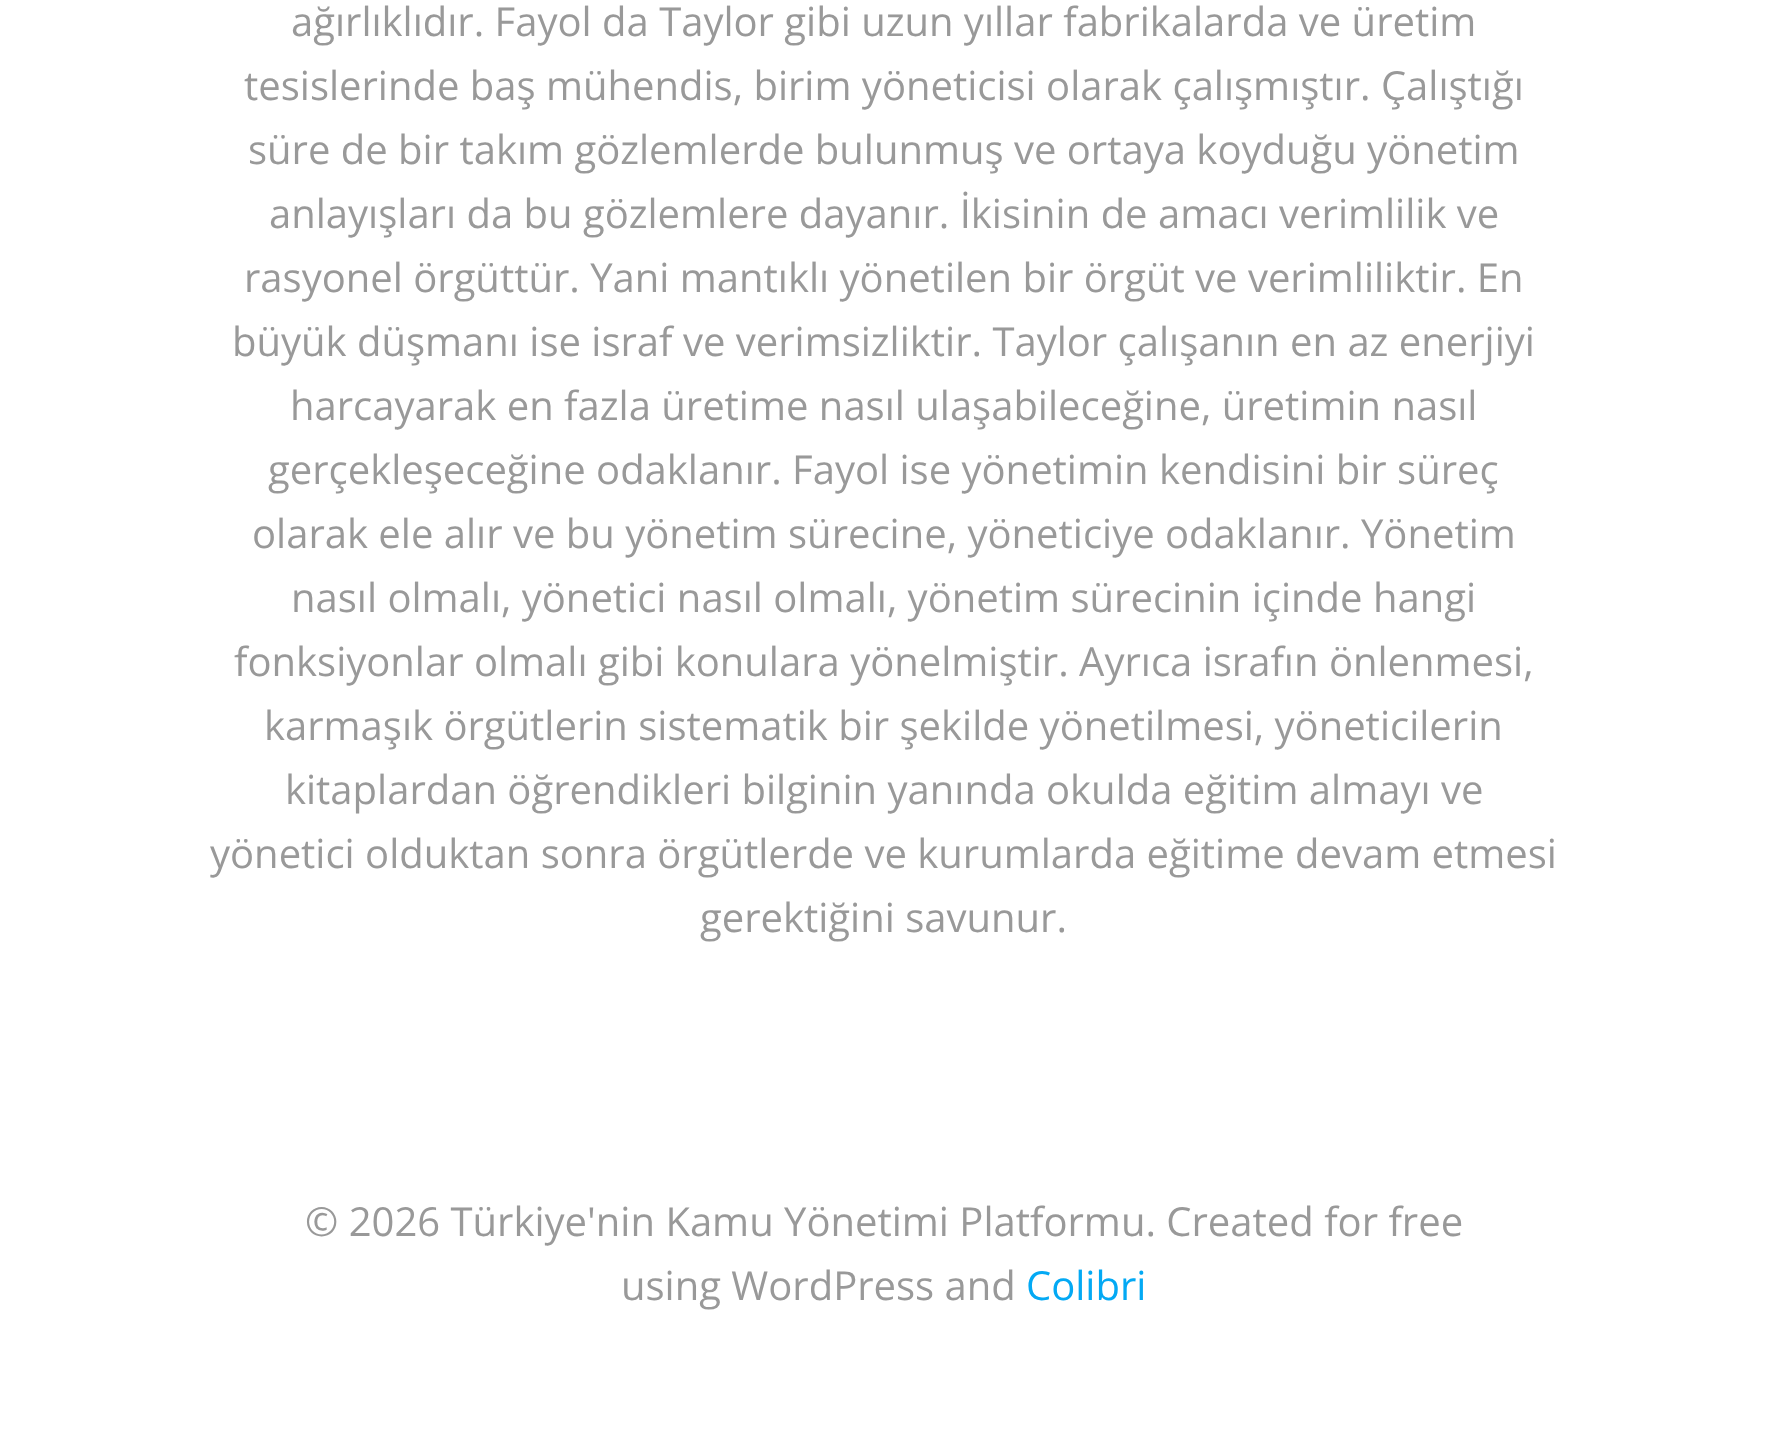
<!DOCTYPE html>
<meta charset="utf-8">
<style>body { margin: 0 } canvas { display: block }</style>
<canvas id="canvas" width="1766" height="1444"></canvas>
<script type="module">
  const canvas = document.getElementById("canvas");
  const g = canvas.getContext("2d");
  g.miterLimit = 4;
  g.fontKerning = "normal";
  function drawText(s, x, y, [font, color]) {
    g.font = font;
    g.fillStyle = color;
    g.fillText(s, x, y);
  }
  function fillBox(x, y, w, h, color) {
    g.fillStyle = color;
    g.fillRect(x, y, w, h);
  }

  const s1 = ["40px Open Sans", "#999999"];
  const s2 = ["40px Open Sans", "#03A9F4"];

  fillBox(0, 0, 1766, 1444, "#FFFFFF");
  drawText("ağırlıklıdır. Fayol da Taylor gibi uzun yıllar fabrikalarda ve üretim", 291, 36, s1);
  drawText("tesislerinde baş mühendis, birim yöneticisi olarak çalışmıştır. Çalıştığı", 244, 100, s1);
  drawText("süre de bir takım gözlemlerde bulunmuş ve ortaya koyduğu yönetim", 248, 164, s1);
  drawText("anlayışları da bu gözlemlere dayanır. İkisinin de amacı verimlilik ve", 269, 228, s1);
  drawText("rasyonel örgüttür. Yani mantıklı yönetilen bir örgüt ve verimliliktir. En", 244, 292, s1);
  drawText("büyük düşmanı ise israf ve verimsizliktir. Taylor çalışanın en az enerjiyi", 232, 356, s1);
  drawText("harcayarak en fazla üretime nasıl ulaşabileceğine, üretimin nasıl", 290, 420, s1);
  drawText("gerçekleşeceğine odaklanır. Fayol ise yönetimin kendisini bir süreç", 268, 484, s1);
  drawText("olarak ele alır ve bu yönetim sürecine, yöneticiye odaklanır. Yönetim", 252, 548, s1);
  drawText("nasıl olmalı, yönetici nasıl olmalı, yönetim sürecinin içinde hangi", 291, 612, s1);
  drawText("fonksiyonlar olmalı gibi konulara yönelmiştir. Ayrıca israfın önlenmesi,", 234, 676, s1);
  drawText("karmaşık örgütlerin sistematik bir şekilde yönetilmesi, yöneticilerin", 264, 740, s1);
  drawText("kitaplardan öğrendikleri bilginin yanında okulda eğitim almayı ve", 285, 804, s1);
  drawText("yönetici olduktan sonra örgütlerde ve kurumlarda eğitime devam etmesi", 210, 868, s1);
  drawText("gerektiğini savunur.", 700, 932, s1);
  drawText("© 2026 Türkiye'nin Kamu Yönetimi Platformu. Created for free", 305, 1236, s1);
  drawText("using WordPress and", 621, 1300, s1);
  drawText("Colibri", 1026, 1300, s2);
</script>
